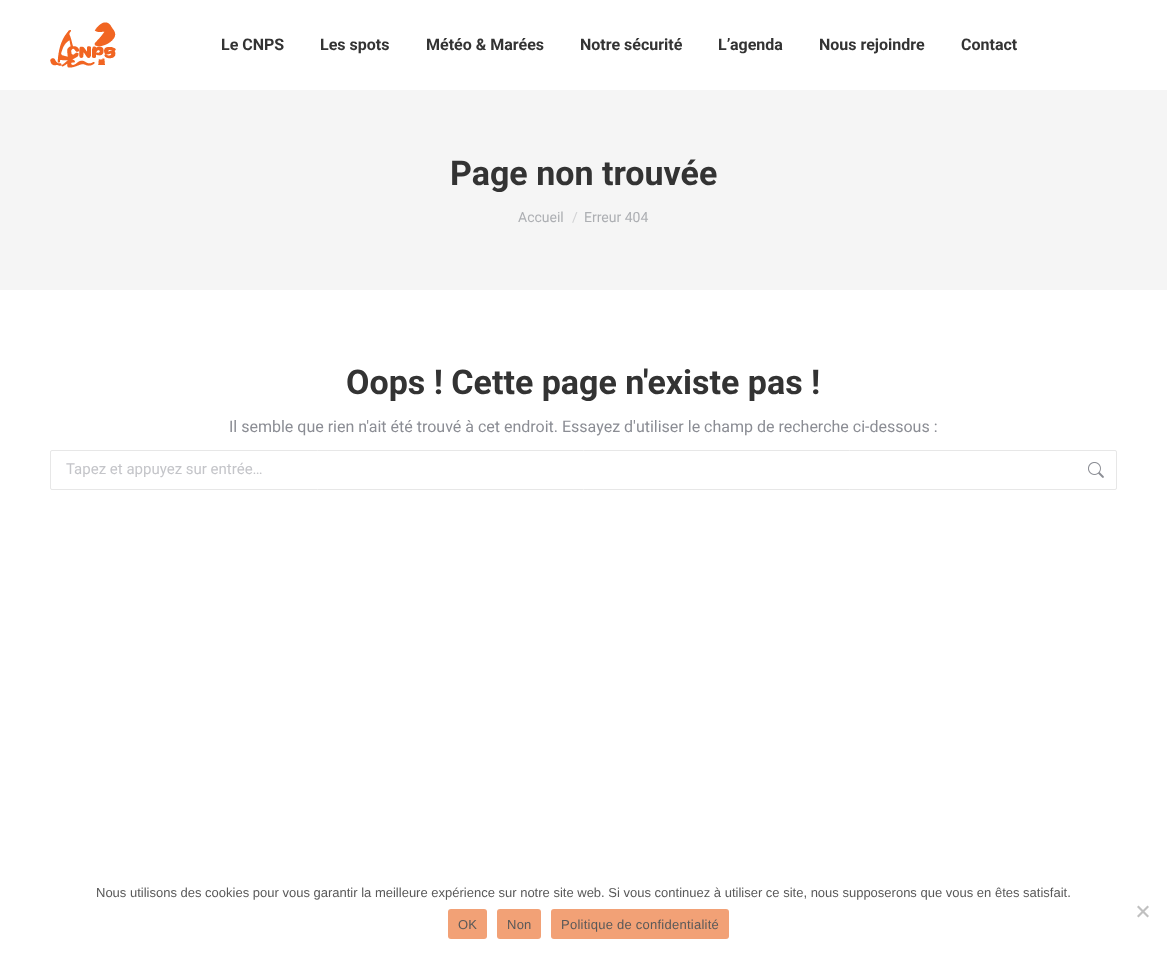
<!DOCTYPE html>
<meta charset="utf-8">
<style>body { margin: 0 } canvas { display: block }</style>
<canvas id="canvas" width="1167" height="954"></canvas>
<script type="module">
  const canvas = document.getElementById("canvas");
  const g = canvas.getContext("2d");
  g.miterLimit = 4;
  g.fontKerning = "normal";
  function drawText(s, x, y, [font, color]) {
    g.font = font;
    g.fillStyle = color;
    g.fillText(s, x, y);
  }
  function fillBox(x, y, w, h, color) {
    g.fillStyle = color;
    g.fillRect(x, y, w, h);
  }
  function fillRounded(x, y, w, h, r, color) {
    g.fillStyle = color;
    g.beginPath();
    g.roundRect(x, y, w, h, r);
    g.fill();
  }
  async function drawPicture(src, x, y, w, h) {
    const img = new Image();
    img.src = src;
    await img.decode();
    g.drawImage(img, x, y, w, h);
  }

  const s1 = ["bold 16px Roboto", "#333333"];
  const s2 = ["bold 34px Roboto", "#333333"];
  const s3 = ["14px Roboto", "#ADAFB3"];
  const s4 = ["14px Roboto", "#D1D2D4"];
  const s5 = ["16px Roboto", "#8B8D94"];
  const s6 = ["15px Roboto", "#C4C5C9"];
  const s7 = ["13px Liberation Sans", "#595959"];

  fillBox(0, 0, 1167, 954, "#FFFFFF");
  await drawPicture("pic1.png", 50, 22, 66, 46);
  drawText("Le CNPS", 221, 50, s1);
  drawText("Les spots", 320, 50, s1);
  drawText("Météo & Marées", 426, 50, s1);
  drawText("Notre sécurité", 580, 50, s1);
  drawText("L’agenda", 718, 50, s1);
  drawText("Nous rejoindre", 819, 50, s1);
  drawText("Contact", 961, 50, s1);
  fillBox(0, 90, 1167, 200, "#F5F5F5");
  drawText("Page non trouvée", 450, 185, s2);
  drawText("Accueil", 518, 222, s3);
  drawText("/", 572, 222, s4);
  drawText("Erreur 404", 584, 222, s3);
  drawText("Oops ! Cette page n'existe pas !", 346, 394, s2);
  drawText("Il semble que rien n'ait été trouvé à cet endroit. Essayez d'utiliser le champ de recherche ci-dessous :", 229, 432, s5);
  g.beginPath();
  g.roundRect(50.5, 450.5, 1066, 39, 1.5);
  g.strokeStyle = "#E7E7E7";
  g.stroke();
  drawText("Tapez et appuyez sur entrée…", 66, 474, s6);
  await drawPicture("pic2.png", 1088, 462, 16, 16);
  drawText("Nous utilisons des cookies pour vous garantir la meilleure expérience sur notre site web. Si vous continuez à utiliser ce site, nous supposerons que vous en êtes satisfait.", 96, 897, s7);
  g.fillStyle = "#C0C0C0";
  g.beginPath();
  g.moveTo(1147.5, 905.5);
  g.lineTo(1149, 907);
  g.lineTo(1138.5, 917.5);
  g.lineTo(1137, 916);
  g.closePath();
  g.fill();
  g.beginPath();
  g.moveTo(1137, 907);
  g.lineTo(1138.5, 905.5);
  g.lineTo(1149, 916);
  g.lineTo(1147.5, 917.5);
  g.closePath();
  g.fill();
  fillRounded(448, 909, 39, 30, 3, "#F2A176");
  g.letterSpacing = "0.25px";
  drawText("OK", 458, 929, s7);
  fillRounded(497, 909, 44, 30, 3, "#F2A176");
  drawText("Non", 507, 929, s7);
  fillRounded(551, 909, 178, 30, 3, "#F2A176");
  drawText("Politique de confidentialité", 561, 929, s7);
</script>
